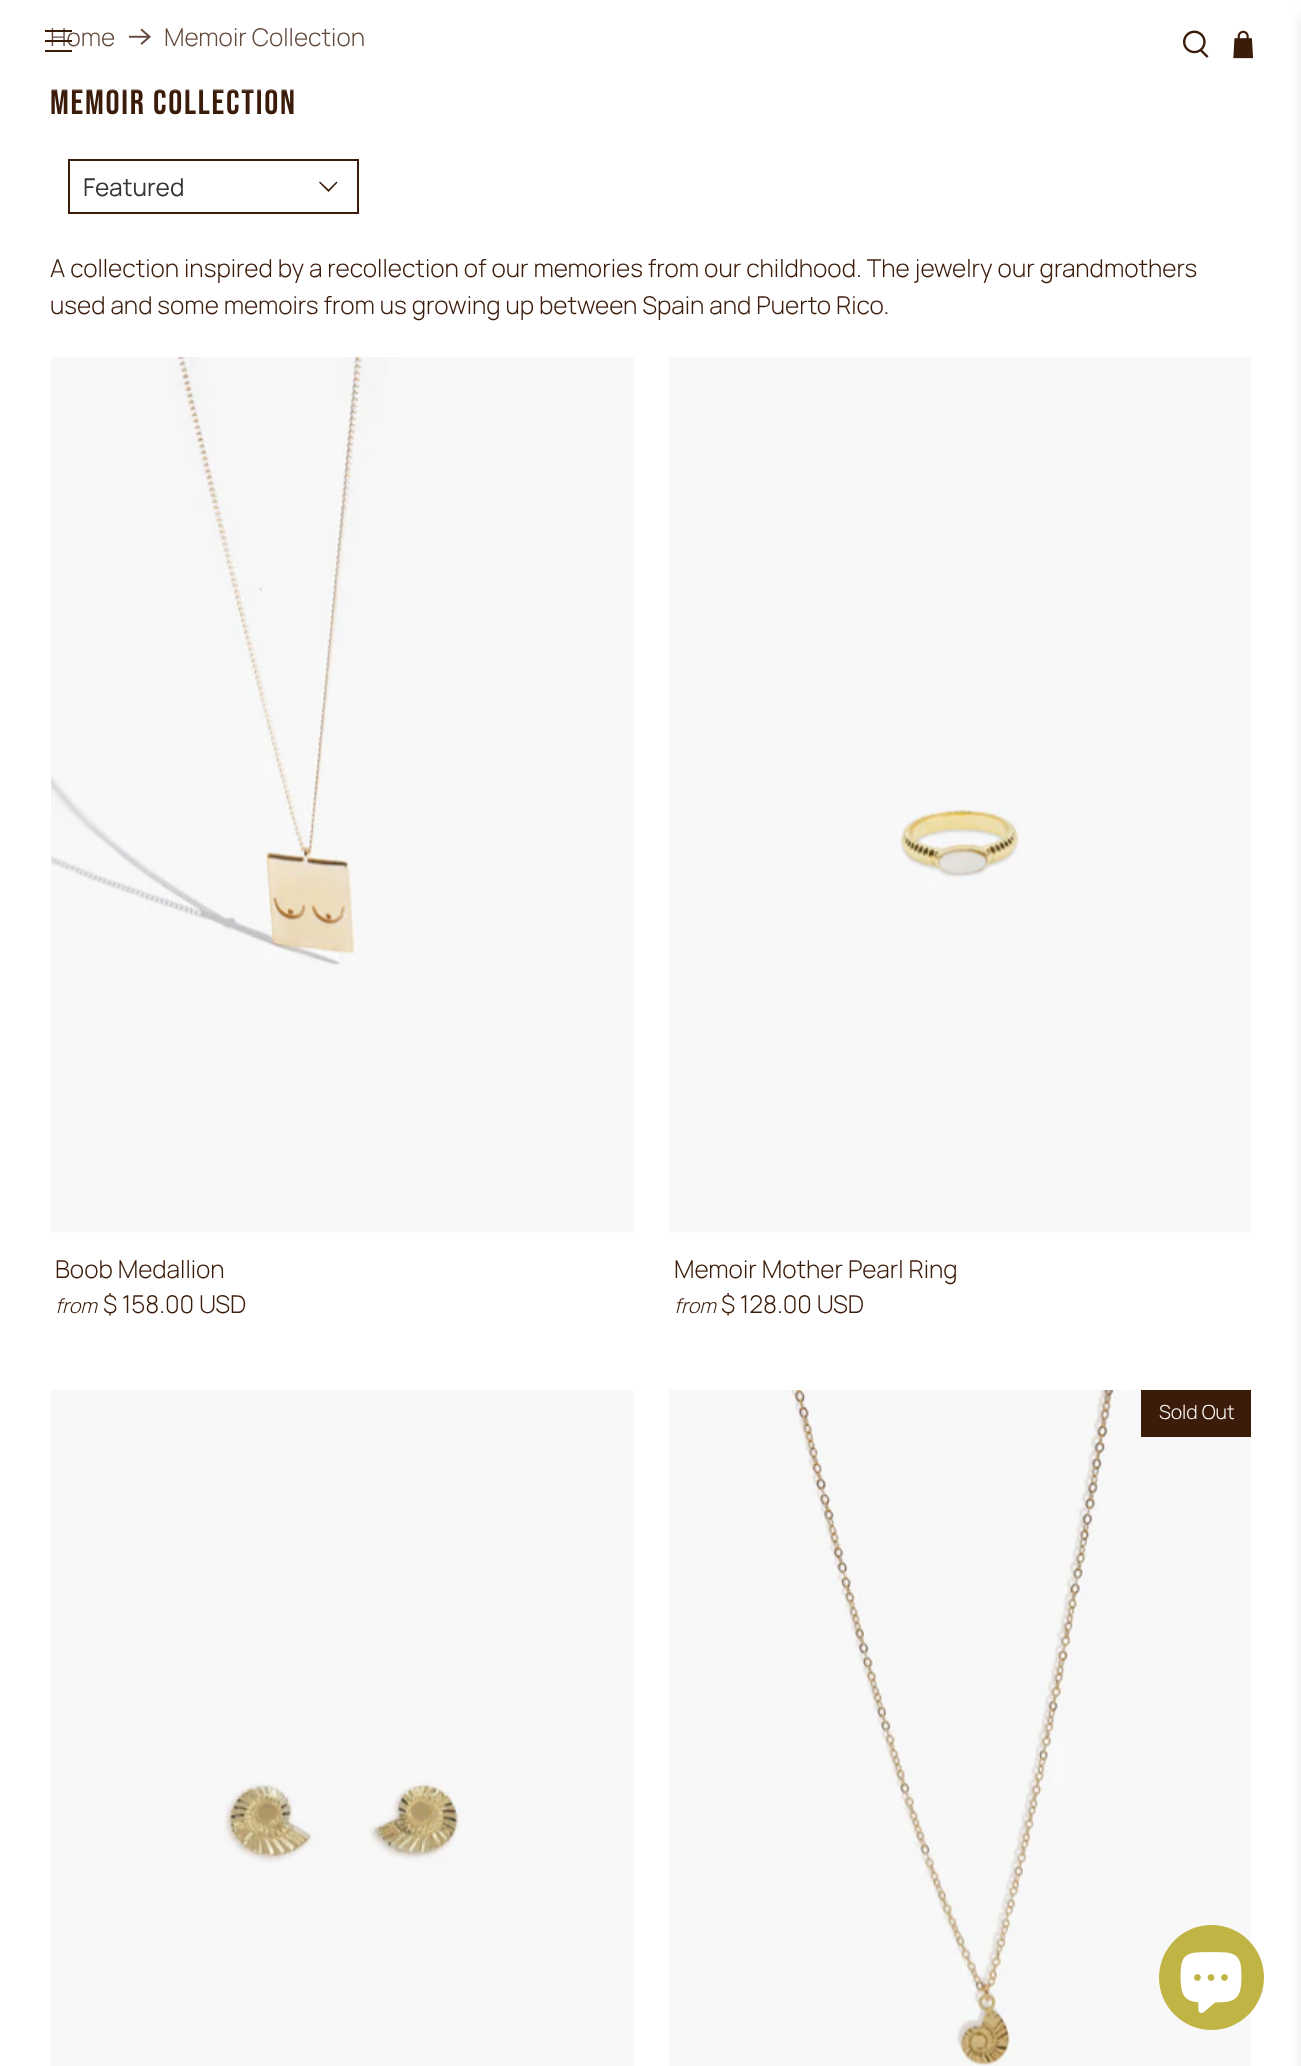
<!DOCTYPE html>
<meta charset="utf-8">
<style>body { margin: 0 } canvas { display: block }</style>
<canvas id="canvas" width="1301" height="2066"></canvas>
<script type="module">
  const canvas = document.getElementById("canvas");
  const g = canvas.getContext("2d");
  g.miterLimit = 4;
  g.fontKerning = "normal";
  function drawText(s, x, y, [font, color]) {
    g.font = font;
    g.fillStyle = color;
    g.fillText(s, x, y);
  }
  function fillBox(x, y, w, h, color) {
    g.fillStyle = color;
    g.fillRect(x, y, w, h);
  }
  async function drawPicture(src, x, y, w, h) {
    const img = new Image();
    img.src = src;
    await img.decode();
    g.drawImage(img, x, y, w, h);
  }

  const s1 = ["300 24.5px Manrope", "#3B1C0A"];
  const s2 = ["35px Bebas Neue", "#3B1C0A"];
  const s3 = ["24.5px Manrope", "#363636"];
  const s4 = ["italic 300 20px Manrope", "#3B1C0A"];
  const s5 = ["300 19.5px Manrope", "#FFFFFF"];

  fillBox(0, 0, 1301, 2066, "#FFFFFF");
  drawText("Home", 50, 46, s1);
  await drawPicture("pic3.png", 128, 28, 23, 17);
  drawText("Memoir Collection", 164, 46, s1);
  g.letterSpacing = "1.75px";
  drawText("Memoir Collection", 50, 114, s2);
  fillBox(51, 28, 313, 63, "rgba(255, 255, 255, 0.2)");
  fillBox(45, 30, 27, 2, "#3B1C0A");
  fillBox(45, 40, 27, 2, "#3B1C0A");
  fillBox(45, 50, 27, 2, "#3B1C0A");
  await drawPicture("pic1.png", 1183, 30, 26, 28);
  await drawPicture("pic2.png", 1233, 30, 21, 29);
  g.fillStyle = "rgba(10, 10, 10, 0.1)";
  g.filter = "blur(7px)";
  g.beginPath();
  g.rect(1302, 14, 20, 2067);
  g.fill();
  g.filter = "none";
  g.strokeStyle = "#3B1C0A";
  g.lineWidth = 2;
  g.strokeRect(69, 160, 289, 53);
  g.letterSpacing = "0px";
  drawText("Featured", 83, 196, s3);
  g.fillStyle = "#3B1C0A";
  g.beginPath();
  g.moveTo(328.5, 192);
  g.lineTo(319, 182.5);
  g.lineTo(320, 181.5);
  g.lineTo(328.5, 189.5);
  g.lineTo(336.5, 181.5);
  g.lineTo(337.5, 182.5);
  g.closePath();
  g.fill();
  drawText("A collection inspired by a recollection of our memories from our childhood. The jewelry our grandmothers", 50, 277, s1);
  drawText("used and some memoirs from us growing up between Spain and Puerto Rico.", 50, 314, s1);
  await drawPicture("pic4.png", 51, 357, 583, 876);
  drawText("Boob Medallion", 55, 1278, s1);
  drawText("from", 55, 1313, s4);
  drawText("$ 158.00 USD", 103, 1313, s1);
  await drawPicture("pic5.png", 669, 357, 582, 876);
  drawText("Memoir Mother Pearl Ring", 674, 1278, s1);
  drawText("from", 674, 1313, s4);
  drawText("$ 128.00 USD", 721, 1313, s1);
  await drawPicture("pic6.png", 51, 1390, 583, 676);
  await drawPicture("pic7.png", 669, 1390, 582, 676);
  fillBox(1141, 1390, 110, 47, "#3B1C0A");
  drawText("Sold Out", 1159, 1419, s5);
  g.fillStyle = "#C0B444";
  g.beginPath();
  g.arc(1211.5, 1977.5, 52.5, 0, Math.PI * 2);
  g.fill();
  await drawPicture("pic8.png", 1180, 1952, 62, 61);
</script>
